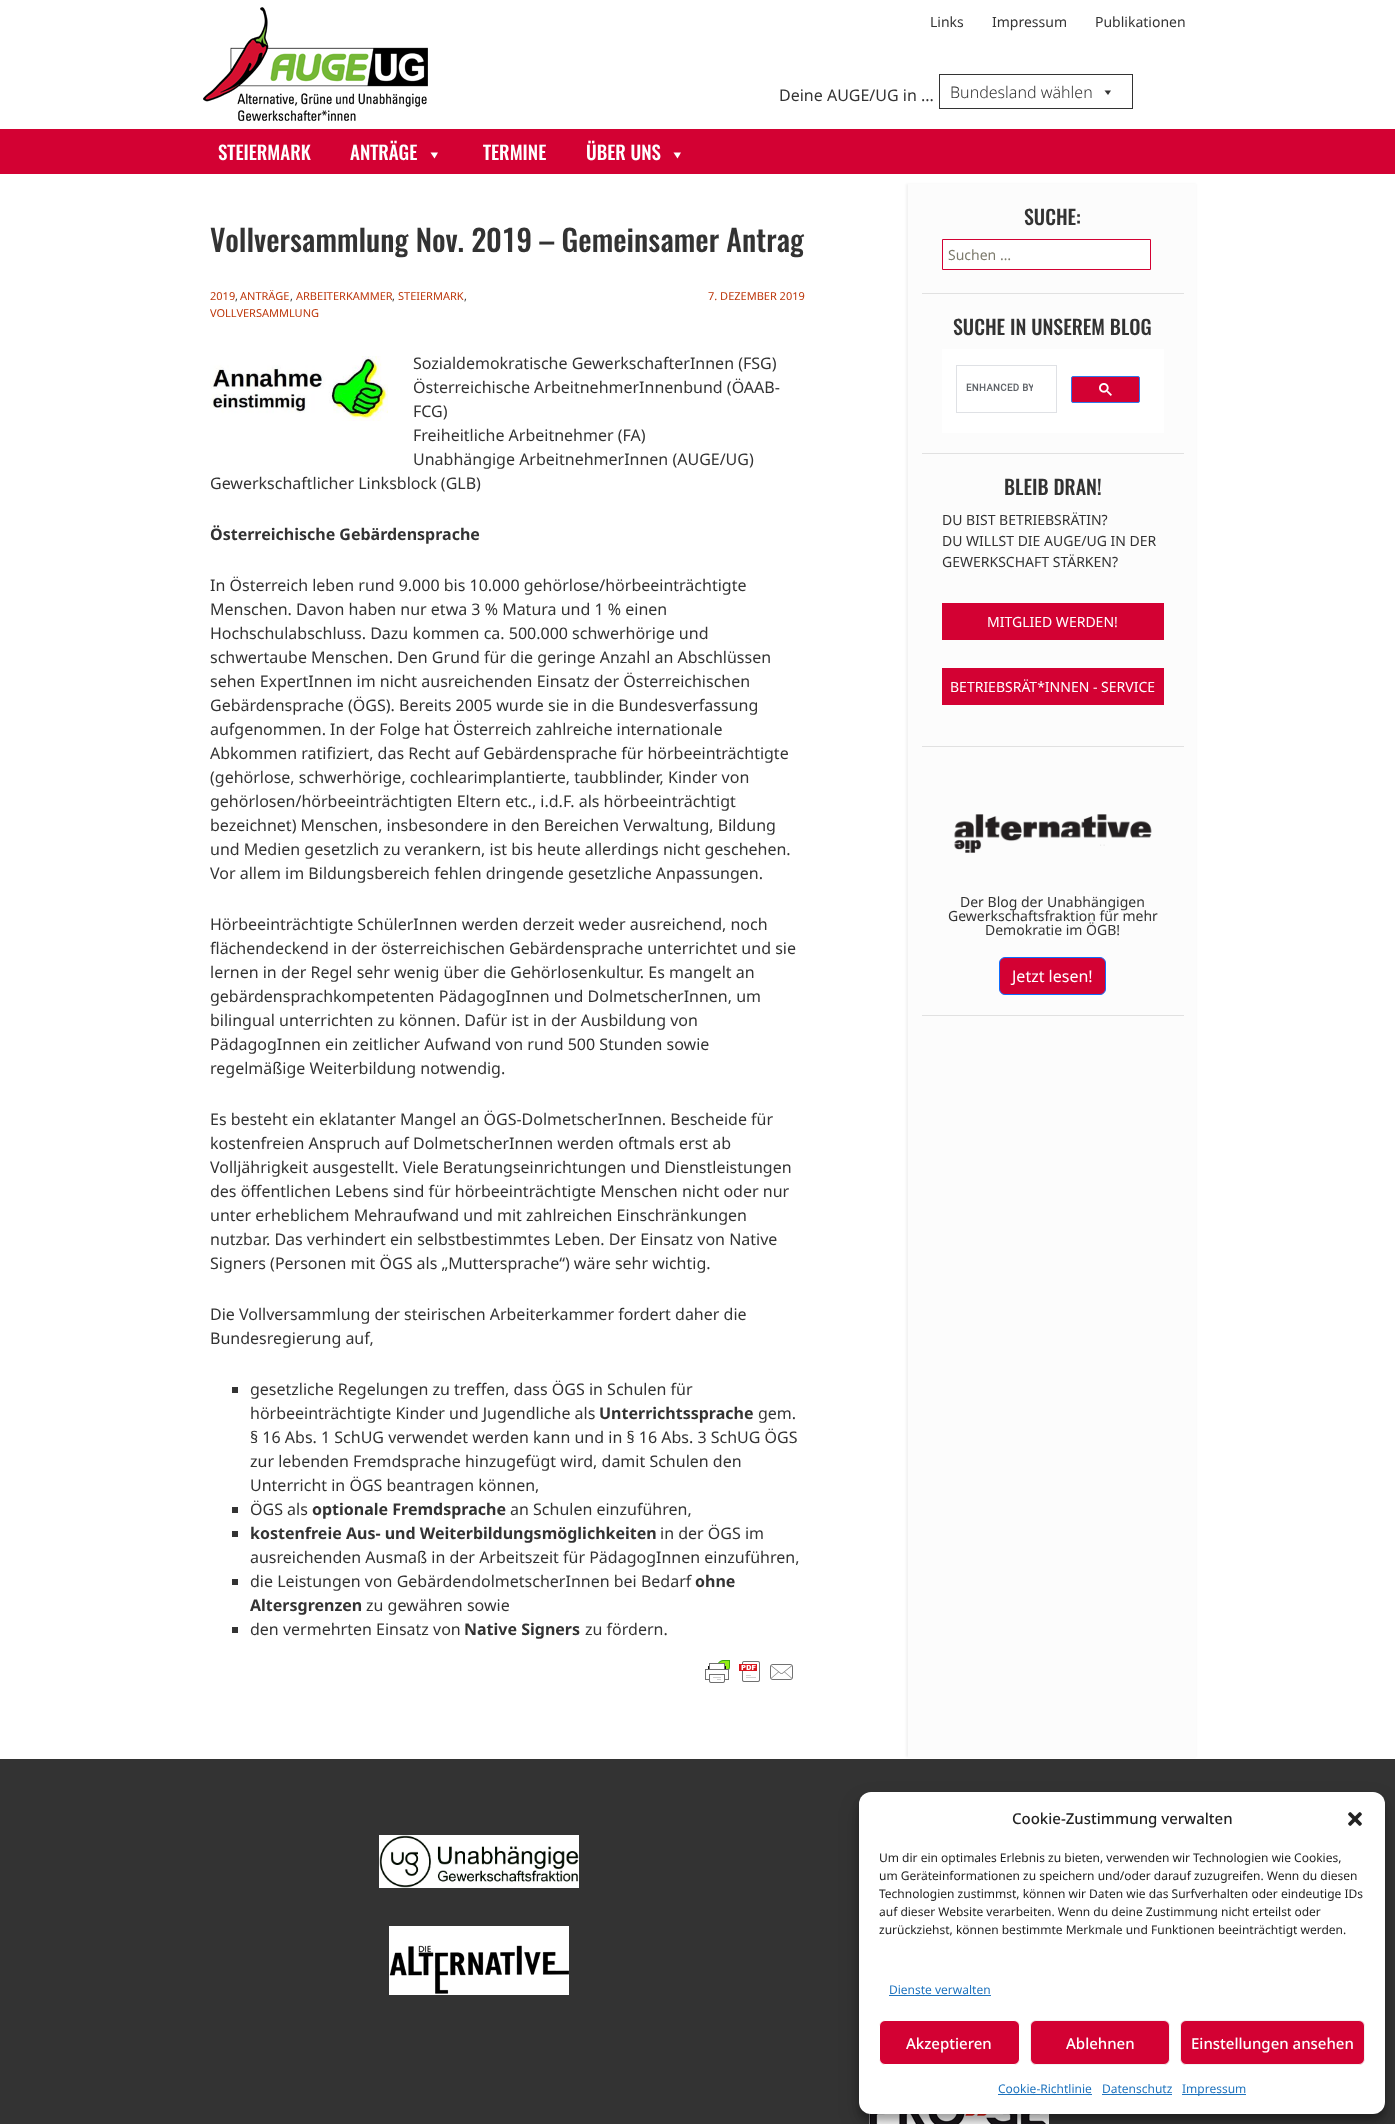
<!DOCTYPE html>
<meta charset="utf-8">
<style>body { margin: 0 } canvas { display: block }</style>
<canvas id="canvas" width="1395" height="2124"></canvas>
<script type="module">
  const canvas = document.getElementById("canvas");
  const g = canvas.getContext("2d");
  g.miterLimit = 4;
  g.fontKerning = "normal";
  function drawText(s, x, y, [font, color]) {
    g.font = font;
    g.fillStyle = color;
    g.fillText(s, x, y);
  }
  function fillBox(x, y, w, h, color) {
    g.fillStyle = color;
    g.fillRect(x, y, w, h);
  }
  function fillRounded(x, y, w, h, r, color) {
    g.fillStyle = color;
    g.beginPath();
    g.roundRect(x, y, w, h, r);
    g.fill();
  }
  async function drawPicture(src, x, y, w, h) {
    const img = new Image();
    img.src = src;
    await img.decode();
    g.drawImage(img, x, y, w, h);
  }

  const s1 = ["14px Noto Sans", "#333333"];
  const s2 = ["16px Noto Sans", "#333333"];
  const s3 = ["300 16px Noto Sans", "#333333"];
  const s4 = ["500 19px Oswald", "#FFFFFF"];
  const s5 = ["500 30px Oswald", "#333333"];
  const s6 = ["11px Noto Sans", "#BC360A"];
  const s7 = ["11px Noto Sans", "#333333"];
  const s8 = ["bold 16px Noto Sans", "#333333"];
  const s9 = ["500 20px Oswald", "#333333"];
  const s10 = ["14px Noto Sans", "#7D7B6D"];
  const s11 = ["14px Noto Sans", "#FFFFFF"];
  const s12 = ["16px Noto Sans", "#FFFFFF"];
  const s13 = ["500 15px Noto Sans", "#222222"];
  const s14 = ["12px Noto Sans", "#222222"];
  const s15 = ["12px Noto Sans", "#1E73BE"];
  const s16 = ["500 15px Noto Sans", "#FFFFFF"];

  fillBox(0, 0, 1395, 2124, "#FFFFFF");
  fillBox(0, 129, 1395, 45, "#D30133");
  fillBox(198, 129, 1000, 45, "#FFFFFF");
  await drawPicture("pic1.png", 203, 7, 225, 114);
  drawText("Links", 930, 27, s1);
  drawText("Impressum", 992, 27, s1);
  drawText("Publikationen", 1095, 27, s1);
  drawText("Deine AUGE/UG in ...", 779, 101, s2);
  g.strokeStyle = "#333333";
  g.strokeRect(939.5, 74.5, 193, 34);
  drawText("Bundesland wählen", 950, 98, s3);
  g.beginPath();
  g.moveTo(1111, 90.5);
  g.lineTo(1108, 95);
  g.lineTo(1104.5, 90.5);
  g.closePath();
  g.fill();
  fillBox(198, 129, 1000, 45, "#D30133");
  drawText("STEIERMARK", 218, 160, s4);
  drawText("ANTRÄGE", 350, 160, s4);
  g.beginPath();
  g.moveTo(438, 152.5);
  g.lineTo(434.5, 158.5);
  g.lineTo(430.5, 152.5);
  g.closePath();
  g.fill();
  drawText("TERMINE", 483, 160, s4);
  drawText("ÜBER UNS", 586, 160, s4);
  g.beginPath();
  g.moveTo(681, 152.5);
  g.lineTo(677.5, 158.5);
  g.lineTo(673.5, 152.5);
  g.closePath();
  g.fill();
  drawText("Vollversammlung Nov. 2019 – Gemeinsamer Antrag", 210, 252, s5);
  drawText("2019", 210, 300, s6);
  drawText(",", 235, 300, s7);
  drawText("ANTRÄGE", 240, 300, s6);
  drawText(",", 290, 300, s7);
  drawText("ARBEITERKAMMER", 296, 300, s6);
  drawText(",", 392, 300, s7);
  drawText("STEIERMARK", 398, 300, s6);
  drawText(",", 464, 300, s7);
  drawText("VOLLVERSAMMLUNG", 210, 317, s6);
  drawText("7. DEZEMBER 2019", 708, 300, s6);
  await drawPicture("pic2.png", 210, 356, 178, 65);
  drawText("Sozialdemokratische GewerkschafterInnen (FSG)", 413, 369, s2);
  drawText("Österreichische ArbeitnehmerInnenbund (ÖAAB-", 413, 393, s2);
  drawText("FCG)", 413, 417, s2);
  drawText("Freiheitliche Arbeitnehmer (FA)", 413, 441, s2);
  drawText("Unabhängige ArbeitnehmerInnen (AUGE/UG)", 413, 465, s2);
  drawText("Gewerkschaftlicher Linksblock (GLB)", 210, 489, s2);
  drawText("Österreichische Gebärdensprache", 210, 540, s8);
  drawText("In Österreich leben rund 9.000 bis 10.000 gehörlose/hörbeeinträchtigte", 210, 591, s2);
  drawText("Menschen. Davon haben nur etwa 3 % Matura und 1 % einen", 210, 615, s2);
  drawText("Hochschulabschluss. Dazu kommen ca. 500.000 schwerhörige und", 210, 639, s2);
  drawText("schwertaube Menschen. Den Grund für die geringe Anzahl an Abschlüssen", 210, 663, s2);
  drawText("sehen ExpertInnen im nicht ausreichenden Einsatz der Österreichischen", 210, 687, s2);
  drawText("Gebärdensprache (ÖGS). Bereits 2005 wurde sie in die Bundesverfassung", 210, 711, s2);
  drawText("aufgenommen. In der Folge hat Österreich zahlreiche internationale", 210, 735, s2);
  drawText("Abkommen ratifiziert, das Recht auf Gebärdensprache für hörbeeinträchtigte", 210, 759, s2);
  drawText("(gehörlose, schwerhörige, cochlearimplantierte, taubblinder, Kinder von", 210, 783, s2);
  drawText("gehörlosen/hörbeeinträchtigten Eltern etc., i.d.F. als hörbeeinträchtigt", 210, 807, s2);
  drawText("bezeichnet) Menschen, insbesondere in den Bereichen Verwaltung, Bildung", 210, 831, s2);
  drawText("und Medien gesetzlich zu verankern, ist bis heute allerdings nicht geschehen.", 210, 855, s2);
  drawText("Vor allem im Bildungsbereich fehlen dringende gesetzliche Anpassungen.", 210, 879, s2);
  drawText("Hörbeeinträchtigte SchülerInnen werden derzeit weder ausreichend, noch", 210, 930, s2);
  drawText("flächendeckend in der österreichischen Gebärdensprache unterrichtet und sie", 210, 954, s2);
  drawText("lernen in der Regel sehr wenig über die Gehörlosenkultur. Es mangelt an", 210, 978, s2);
  drawText("gebärdensprachkompetenten PädagogInnen und DolmetscherInnen, um", 210, 1002, s2);
  drawText("bilingual unterrichten zu können. Dafür ist in der Ausbildung von", 210, 1026, s2);
  drawText("PädagogInnen ein zeitlicher Aufwand von rund 500 Stunden sowie", 210, 1050, s2);
  drawText("regelmäßige Weiterbildung notwendig.", 210, 1074, s2);
  drawText("Es besteht ein eklatanter Mangel an ÖGS-DolmetscherInnen. Bescheide für", 210, 1125, s2);
  drawText("kostenfreien Anspruch auf DolmetscherInnen werden oftmals erst ab", 210, 1149, s2);
  drawText("Volljährigkeit ausgestellt. Viele Beratungseinrichtungen und Dienstleistungen", 210, 1173, s2);
  drawText("des öffentlichen Lebens sind für hörbeeinträchtigte Menschen nicht oder nur", 210, 1197, s2);
  drawText("unter erheblichem Mehraufwand und mit zahlreichen Einschränkungen", 210, 1221, s2);
  drawText("nutzbar. Das verhindert ein selbstbestimmtes Leben. Der Einsatz von Native", 210, 1245, s2);
  drawText("Signers (Personen mit ÖGS als „Muttersprache“) wäre sehr wichtig.", 210, 1269, s2);
  drawText("Die Vollversammlung der steirischen Arbeiterkammer fordert daher die", 210, 1320, s2);
  drawText("Bundesregierung auf,", 210, 1344, s2);
  fillBox(232, 1387, 6, 6, "#333333");
  drawText("gesetzliche Regelungen zu treffen, dass ÖGS in Schulen für", 250, 1395, s2);
  drawText("hörbeeinträchtigte Kinder und Jugendliche als", 250, 1419, s2);
  drawText("Unterrichtssprache", 599, 1419, s8);
  drawText("gem.", 758, 1419, s2);
  drawText("§ 16 Abs. 1 SchUG verwendet werden kann und in § 16 Abs. 3 SchUG ÖGS", 250, 1443, s2);
  drawText("zur lebenden Fremdsprache hinzugefügt wird, damit Schulen den", 250, 1467, s2);
  drawText("Unterricht in ÖGS beantragen können,", 250, 1491, s2);
  fillBox(232, 1507, 6, 6, "#333333");
  drawText("ÖGS als", 250, 1515, s2);
  drawText("optionale Fremdsprache", 312, 1515, s8);
  drawText("an Schulen einzuführen,", 510, 1515, s2);
  fillBox(232, 1531, 6, 6, "#333333");
  drawText("kostenfreie Aus- und Weiterbildungsmöglichkeiten", 250, 1539, s8);
  drawText("in der ÖGS im", 660, 1539, s2);
  drawText("ausreichenden Ausmaß in der Arbeitszeit für PädagogInnen einzuführen,", 250, 1563, s2);
  fillBox(232, 1579, 6, 6, "#333333");
  drawText("die Leistungen von GebärdendolmetscherInnen bei Bedarf", 250, 1587, s2);
  drawText("ohne", 695, 1587, s8);
  drawText("Altersgrenzen", 250, 1611, s8);
  drawText("zu gewähren sowie", 366, 1611, s2);
  fillBox(232, 1627, 6, 6, "#333333");
  drawText("den vermehrten Einsatz von", 250, 1635, s2);
  drawText("Native Signers", 464, 1635, s8);
  drawText("zu fördern.", 585, 1635, s2);
  await drawPicture("pic3.png", 705, 1660, 88, 23);
  fillBox(0, 1759, 1395, 365, "#333333");
  g.fillStyle = "#F2F2F2";
  g.filter = "blur(1px)";
  g.beginPath();
  g.rect(906, 184, 290, 1573);
  g.fill();
  g.filter = "none";
  fillBox(908, 184, 288, 1573, "#FCFCFC");
  fillBox(922, 293, 262, 1, "#E1E1E1");
  drawText("SUCHE:", 1024, 225, s9);
  g.fillStyle = "#FFFFFF";
  g.beginPath();
  g.rect(942.5, 239.5, 208, 30);
  g.fill();
  g.strokeStyle = "#D30133";
  g.stroke();
  drawText("Suchen …", 948, 260, s10);
  fillBox(922, 453, 262, 1, "#E1E1E1");
  drawText("SUCHE IN UNSEREM BLOG", 953, 335, s9);
  fillBox(942, 349, 222, 84, "#FFFFFF");
  g.strokeStyle = "#DFE1E5";
  g.strokeRect(956.5, 365.5, 100, 47);
  await drawPicture("pic4.png", 966, 383, 67, 8);
  g.fillStyle = "#D30133";
  g.beginPath();
  g.roundRect(1071.5, 376.5, 68, 26, 1.5);
  g.fill();
  g.strokeStyle = "#3079ED";
  g.stroke();
  await drawPicture("pic5.png", 1099, 383, 13, 13);
  fillBox(922, 746, 262, 1, "#E1E1E1");
  drawText("BLEIB DRAN!", 1004, 495, s9);
  drawText("DU BIST BETRIEBSRÄTIN?", 942, 525, s1);
  drawText("DU WILLST DIE AUGE/UG IN DER", 942, 546, s1);
  drawText("GEWERKSCHAFT STÄRKEN?", 942, 567, s1);
  fillBox(942, 603, 222, 37, "#D30133");
  drawText("MITGLIED WERDEN!", 987, 627, s11);
  fillBox(942, 668, 222, 37, "#D30133");
  drawText("BETRIEBSRÄT*INNEN - SERVICE", 950, 692, s11);
  fillBox(922, 1015, 262, 1, "#E1E1E1");
  await drawPicture("pic6.png", 954, 814, 198, 39);
  drawText("Der Blog der Unabhängigen", 960, 907, s1);
  drawText("Gewerkschaftsfraktion für mehr", 948, 921, s1);
  drawText("Demokratie im ÖGB!", 985, 935, s1);
  g.fillStyle = "#D30133";
  g.beginPath();
  g.roundRect(999.5, 957.5, 106, 37, 5.5);
  g.fill();
  g.strokeStyle = "#0D6EFD";
  g.stroke();
  drawText("Jetzt lesen!", 1012, 982, s12);
  await drawPicture("pic7.png", 379, 1835, 200, 53);
  await drawPicture("pic8.png", 389, 1926, 180, 69);
  await drawPicture("pic9.png", 869, 2113, 180, 11);
  g.fillStyle = "rgba(0, 0, 0, 0.23)";
  g.filter = "blur(3px)";
  g.beginPath();
  g.roundRect(859, 1798, 526, 322, 12);
  g.fill();
  g.filter = "none";
  g.fillStyle = "rgba(0, 0, 0, 0.19)";
  g.filter = "blur(10px)";
  g.beginPath();
  g.roundRect(859, 1802, 526, 322, 12);
  g.fill();
  g.filter = "none";
  fillRounded(859, 1792, 526, 322, 12, "#FFFFFF");
  drawText("Cookie-Zustimmung verwalten", 1012, 1824, s13);
  await drawPicture("pic10.png", 1348, 1812, 14, 14);
  drawText("Um dir ein optimales Erlebnis zu bieten, verwenden wir Technologien wie Cookies,", 879, 1862, s14);
  drawText("um Geräteinformationen zu speichern und/oder darauf zuzugreifen. Wenn du diesen", 879, 1880, s14);
  drawText("Technologien zustimmst, können wir Daten wie das Surfverhalten oder eindeutige IDs", 879, 1898, s14);
  drawText("auf dieser Website verarbeiten. Wenn du deine Zustimmung nicht erteilst oder", 879, 1916, s14);
  drawText("zurückziehst, können bestimmte Merkmale und Funktionen beeinträchtigt werden.", 879, 1934, s14);
  drawText("Dienste verwalten", 889, 1994, s15);
  fillBox(889, 1995, 102, 1, "#1E73BE");
  g.fillStyle = "#D30133";
  g.beginPath();
  g.roundRect(879.5, 2020.5, 140, 44, 5.5);
  g.fill();
  g.strokeStyle = "#FFFFFF";
  g.stroke();
  drawText("Akzeptieren", 906, 2049, s16);
  g.fillStyle = "#D30133";
  g.beginPath();
  g.roundRect(1030.5, 2020.5, 139, 44, 5.5);
  g.fill();
  g.strokeStyle = "#F2F2F2";
  g.stroke();
  drawText("Ablehnen", 1066, 2049, s16);
  g.fillStyle = "#D30133";
  g.beginPath();
  g.roundRect(1180.5, 2020.5, 184, 44, 5.5);
  g.fill();
  g.stroke();
  drawText("Einstellungen ansehen", 1191, 2049, s16);
  drawText("Cookie-Richtlinie", 998, 2093, s15);
  fillBox(998, 2094, 94, 1, "#1E73BE");
  drawText("Datenschutz", 1102, 2093, s15);
  fillBox(1102, 2094, 70, 1, "#1E73BE");
  fillBox(1182, 2094, 64, 1, "#1E73BE");
  drawText("Impressum", 1182, 2093, s15);
</script>
